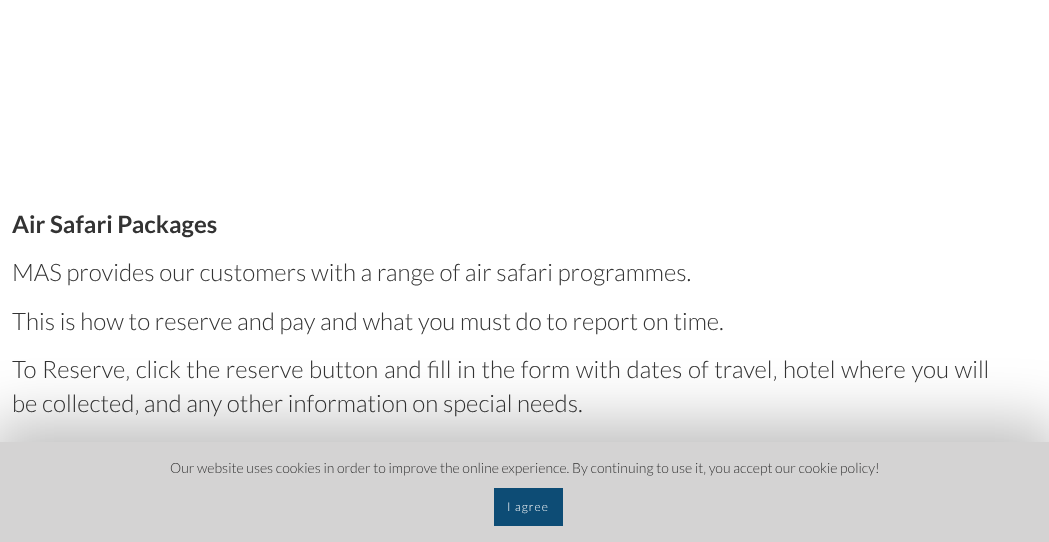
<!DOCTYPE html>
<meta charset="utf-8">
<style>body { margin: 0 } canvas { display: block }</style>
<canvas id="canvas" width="1049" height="542"></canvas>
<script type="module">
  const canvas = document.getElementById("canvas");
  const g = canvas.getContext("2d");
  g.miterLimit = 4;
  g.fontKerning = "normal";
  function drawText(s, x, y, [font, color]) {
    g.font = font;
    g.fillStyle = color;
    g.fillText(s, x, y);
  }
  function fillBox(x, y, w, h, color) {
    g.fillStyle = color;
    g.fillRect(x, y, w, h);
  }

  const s1 = ["bold 24px Lato", "#333333"];
  const s2 = ["300 24px Lato", "#333333"];
  const s3 = ["300 14px Lato", "#333333"];
  const s4 = ["300 12px Lato", "#FFFFFF"];

  fillBox(0, 0, 1049, 542, "#FFFFFF");
  drawText("Air Safari Packages", 12, 233, s1);
  drawText("MAS provides our customers with a range of air safari programmes.", 12, 281, s2);
  drawText("This is how to reserve and pay and what you must do to report on time.", 12, 330, s2);
  g.wordSpacing = "1px";
  drawText("To Reserve‚ click the reserve button and fill in the form with dates of travel‚ hotel where you will", 12, 378, s2);
  g.wordSpacing = "0px";
  drawText("be collected‚ and any other information on special needs.", 12, 412, s2);
  g.fillStyle = "rgba(0, 0, 0, 0.25)";
  g.filter = "blur(30px)";
  g.beginPath();
  g.rect(-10, 422, 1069, 120);
  g.fill();
  g.filter = "none";
  fillBox(0, 442, 1049, 100, "#D4D3D3");
  drawText("Our website uses cookies in order to improve the online experience. By continuing to use it‚ you accept our cookie policy!", 170, 473, s3);
  fillBox(494, 488, 69, 38, "#0D4C75");
  g.letterSpacing = "1px";
  drawText("I agree", 507, 511, s4);
</script>
